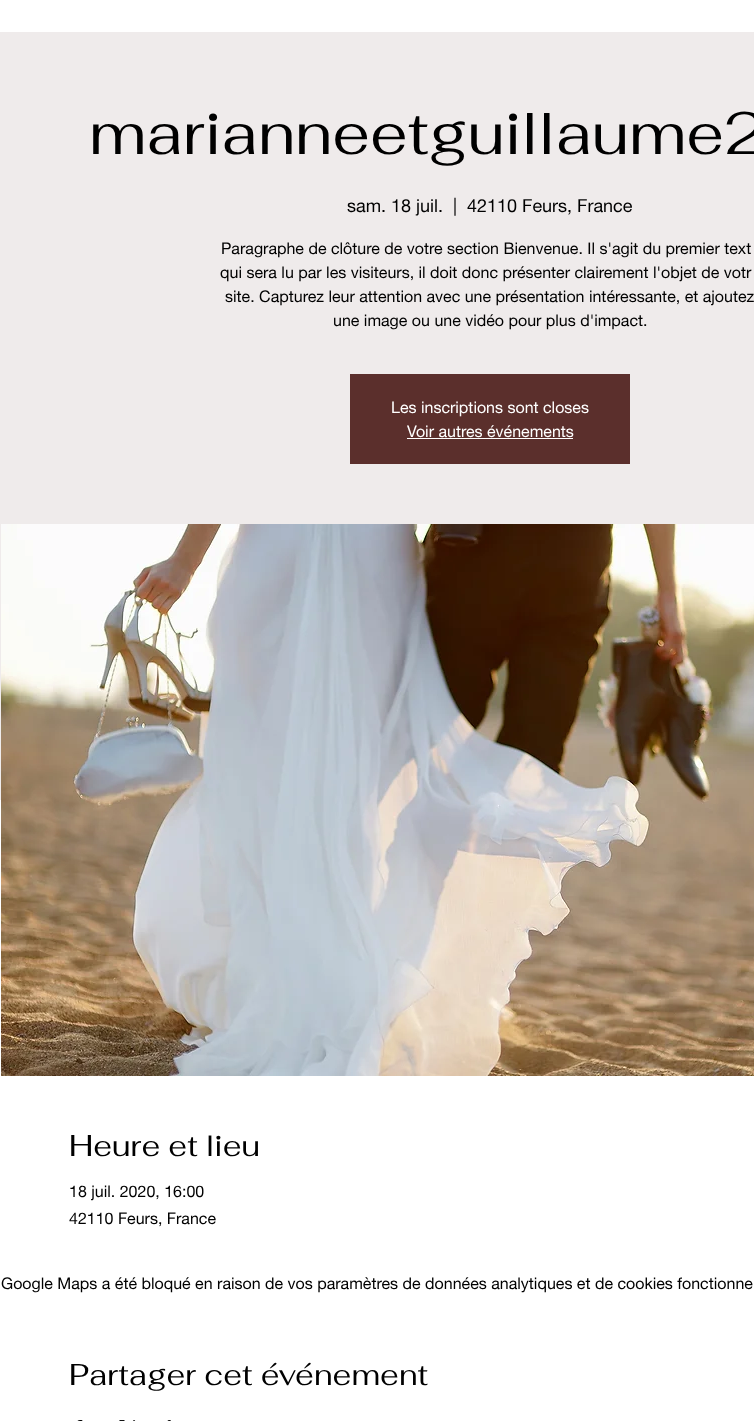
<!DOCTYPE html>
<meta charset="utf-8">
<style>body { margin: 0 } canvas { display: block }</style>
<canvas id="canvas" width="754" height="1421"></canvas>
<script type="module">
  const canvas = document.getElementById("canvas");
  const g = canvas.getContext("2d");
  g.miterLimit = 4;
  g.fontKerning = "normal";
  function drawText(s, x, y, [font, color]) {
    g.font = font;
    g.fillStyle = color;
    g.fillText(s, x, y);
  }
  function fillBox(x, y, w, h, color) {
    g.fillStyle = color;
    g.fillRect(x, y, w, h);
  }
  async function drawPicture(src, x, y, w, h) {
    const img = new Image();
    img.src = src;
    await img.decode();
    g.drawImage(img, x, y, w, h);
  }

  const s1 = ["60px Fahkwang", "#000000"];
  const s2 = ["18px helvetica neue", "#000000"];
  const s3 = ["16px helvetica neue", "#000000"];
  const s4 = ["16px helvetica neue", "#FFFFFF"];
  const s5 = ["30px Fahkwang", "#000000"];

  fillBox(0, 0, 754, 1421, "#FFFFFF");
  fillBox(0, 32, 754, 768, "#EFEBEB");
  drawText("marianneetguillaume2", 89, 154, s1);
  drawText("sam. 18 juil.", 347, 212, s2);
  drawText("|", 453, 212, s2);
  drawText("42110 Feurs, France", 467, 212, s2);
  drawText("Paragraphe de clôture de votre section Bienvenue. Il s'agit du premier text", 221, 254, s3);
  drawText("qui sera lu par les visiteurs, il doit donc présenter clairement l'objet de votr", 220, 278, s3);
  drawText("site. Capturez leur attention avec une présentation intéressante, et ajoutez", 225, 302, s3);
  drawText("une image ou une vidéo pour plus d'impact.", 333, 326, s3);
  fillBox(350, 374, 280, 90, "#5B2F2C");
  drawText("Les inscriptions sont closes", 391, 413, s4);
  drawText("Voir autres événements", 407, 437, s4);
  fillBox(407, 438, 166, 1, "#FFFFFF");
  await drawPicture("pic1.png", 1, 524, 753, 552);
  drawText("Heure et lieu", 69, 1156, s5);
  drawText("18 juil. 2020, 16:00", 69, 1197, s3);
  drawText("42110 Feurs, France", 69, 1224, s3);
  drawText("Google Maps a été bloqué en raison de vos paramètres de données analytiques et de cookies fonctionne", 1, 1289, s3);
  drawText("Partager cet événement", 69, 1385, s5);
  await drawPicture("pic2.png", 77, 1420, 6, 1);
  await drawPicture("pic3.png", 119, 1420, 17, 1);
  await drawPicture("pic4.png", 167, 1420, 4, 1);
</script>
